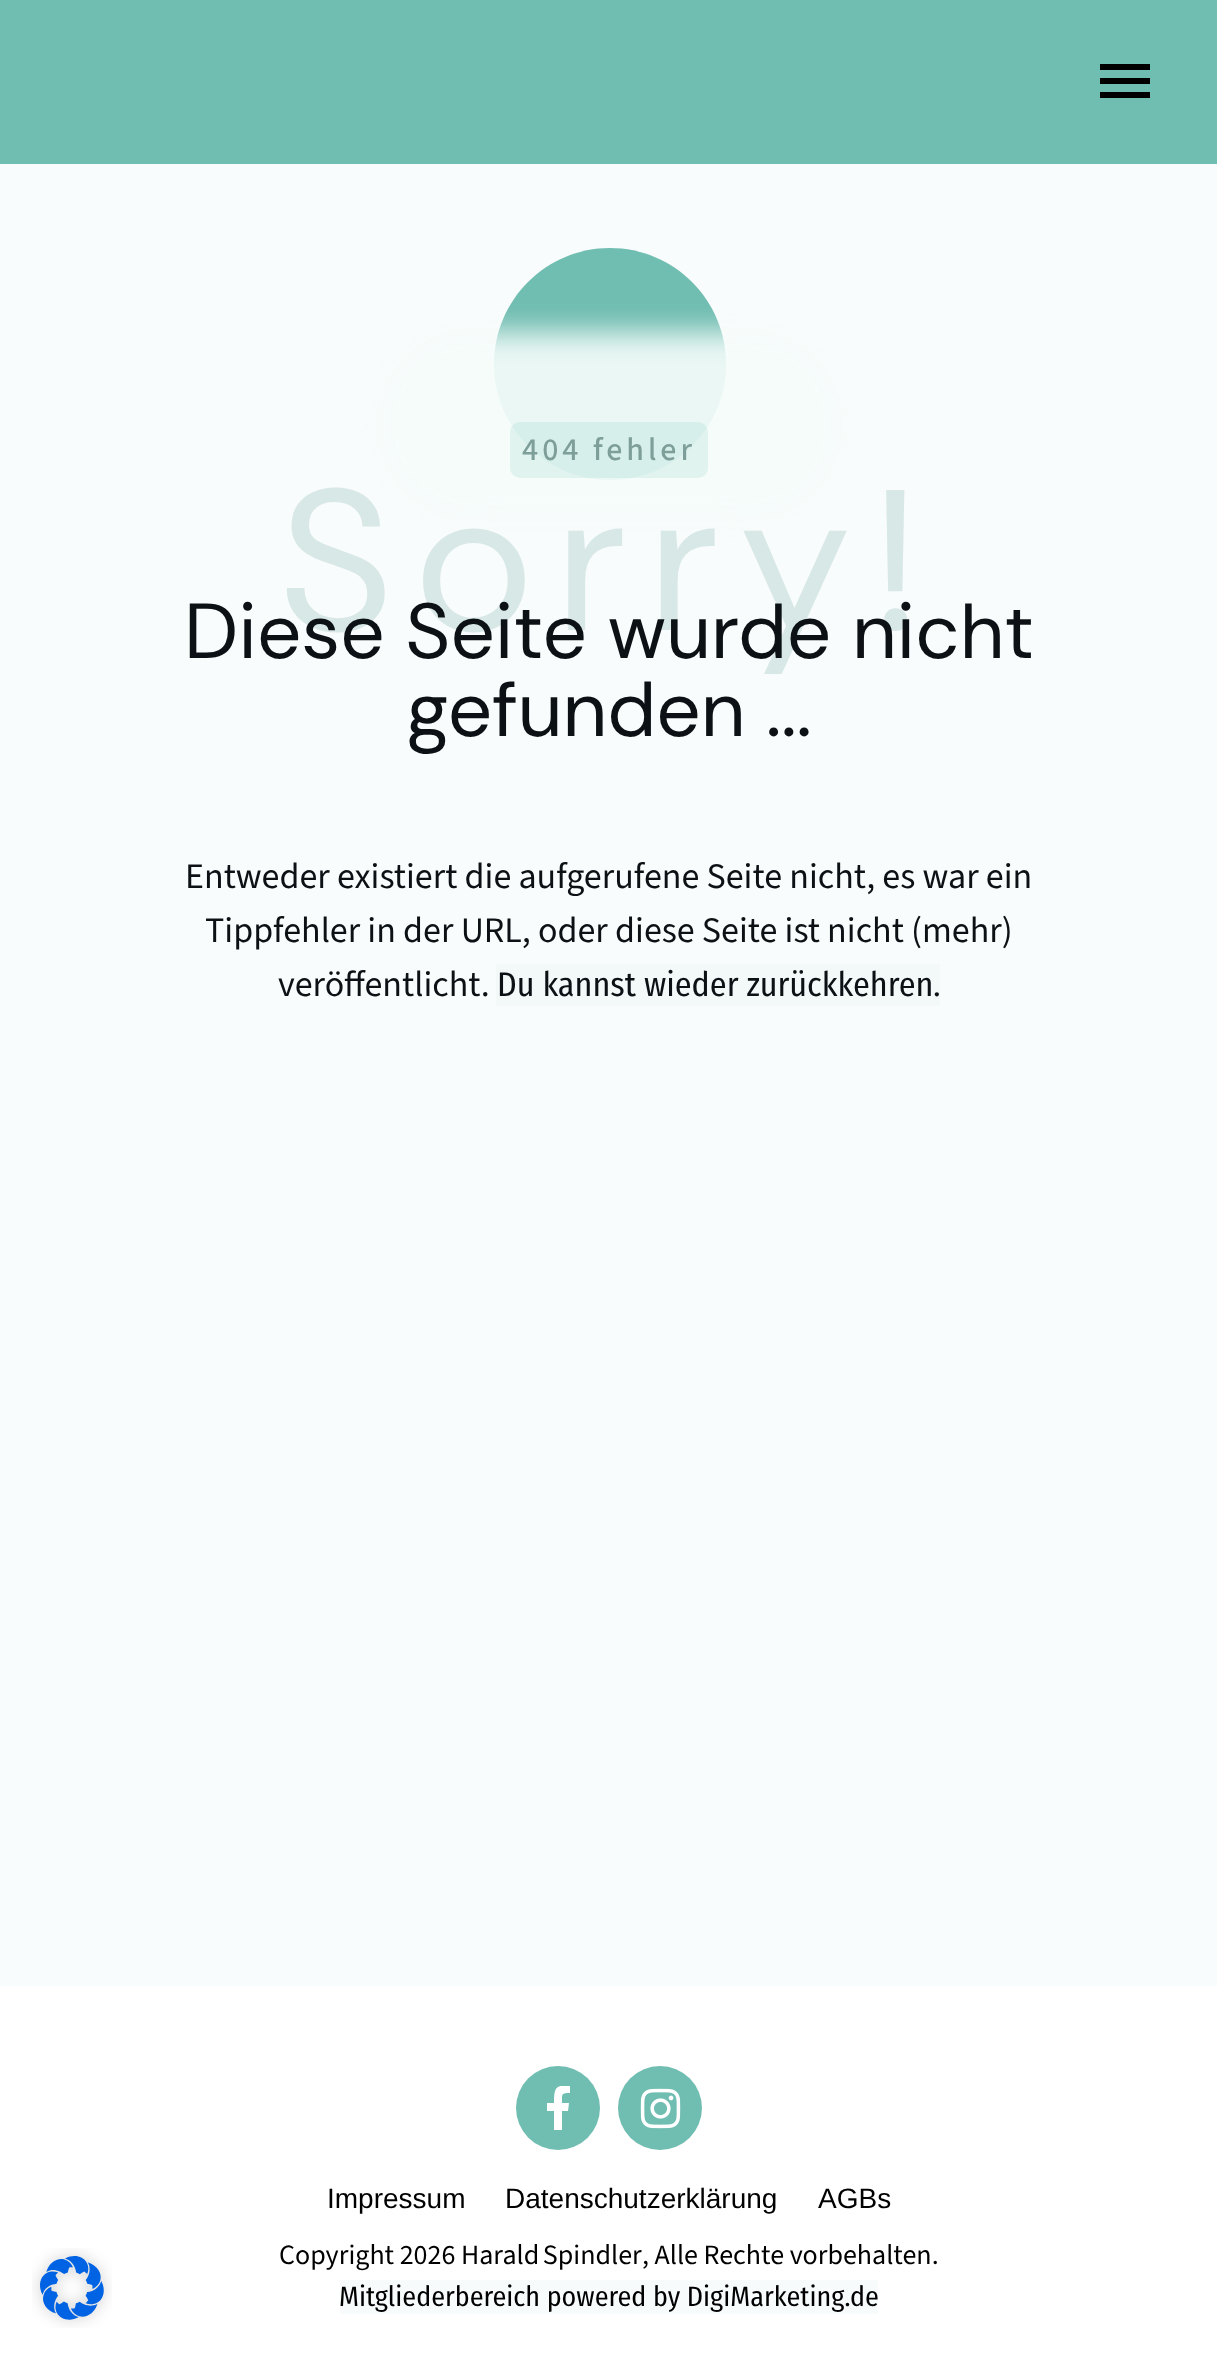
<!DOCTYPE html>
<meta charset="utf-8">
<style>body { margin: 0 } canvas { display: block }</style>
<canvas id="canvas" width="1217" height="2359"></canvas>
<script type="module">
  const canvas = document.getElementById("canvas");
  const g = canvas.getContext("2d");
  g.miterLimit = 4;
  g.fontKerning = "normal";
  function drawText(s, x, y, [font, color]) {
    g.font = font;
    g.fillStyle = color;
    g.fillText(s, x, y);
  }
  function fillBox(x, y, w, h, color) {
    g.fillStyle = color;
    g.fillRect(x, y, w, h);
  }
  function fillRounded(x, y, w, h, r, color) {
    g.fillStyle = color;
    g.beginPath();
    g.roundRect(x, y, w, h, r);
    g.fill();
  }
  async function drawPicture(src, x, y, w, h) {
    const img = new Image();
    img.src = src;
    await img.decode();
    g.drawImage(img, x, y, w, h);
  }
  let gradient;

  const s1 = ["500 32px 'Source Sans 3'", "#7E9E99"];
  const s2 = ["200px Rethink Sans", "#D8E8E6"];
  const s3 = ["78px Rethink Sans", "#0C1115"];
  const s4 = ["36px 'Source Sans 3'", "#0C1115"];
  const s5 = ["34px Fira Sans Condensed", "#0C1115"];
  const s6 = ["28px Liberation Sans", "#000000"];
  const s7 = ["28px 'Source Sans 3'", "#000000"];
  const s8 = ["28px Fira Sans Condensed", "#000000"];

  fillBox(0, 0, 1217, 2359, "#F9FCFC");
  fillBox(0, 1986, 1217, 373, "#FFFFFF");
  await drawPicture("pic1.png", 32, 2248, 80, 80);
  fillBox(0, 0, 1217, 164, "#70BDB1");
  g.fillStyle = "#000000";
  g.beginPath();
  g.moveTo(1100, 64);
  g.lineTo(1150, 64);
  g.lineTo(1150, 70);
  g.lineTo(1100, 70);
  g.lineTo(1100, 64);
  g.moveTo(1100, 78);
  g.lineTo(1150, 78);
  g.lineTo(1150, 84);
  g.lineTo(1100, 84);
  g.lineTo(1100, 78);
  g.moveTo(1100, 92);
  g.lineTo(1150, 92);
  g.lineTo(1150, 98);
  g.lineTo(1100, 98);
  g.closePath();
  g.fill();
  g.fillStyle = "#70BDB1";
  g.beginPath();
  g.moveTo(610, 248);
  g.bezierCurveTo(546, 248, 494, 300, 494, 364);
  g.bezierCurveTo(494, 428, 546, 480, 610, 480);
  g.bezierCurveTo(674, 480, 726, 428, 726, 364);
  g.bezierCurveTo(726, 300, 674, 248, 610, 248);
  g.closePath();
  g.fill();
  g.fillStyle = "rgba(244, 252, 250, 0.92)";
  g.filter = "blur(14px)";
  g.beginPath();
  g.roundRect(380, 332, 460, 186, 186);
  g.fill();
  g.filter = "none";
  fillRounded(510, 422, 198, 56, 10, "rgba(80, 180, 166, 0.12)");
  g.letterSpacing = "4px";
  drawText("404 fehler", 522, 460, s1);
  g.letterSpacing = "20px";
  drawText("Sorry!", 278, 630, s2);
  g.letterSpacing = "0px";
  drawText("Diese Seite wurde nicht", 184, 658, s3);
  drawText("gefunden ...", 407, 736, s3);
  drawText("Entweder existiert die aufgerufene Seite nicht, es war ein", 185, 888, s4);
  drawText("Tippfehler in der URL, oder diese Seite ist nicht (mehr)", 205, 942, s4);
  drawText("veröffentlicht.", 278, 996, s4);
  fillBox(496, 964, 444, 42, "#F2F9F8");
  drawText("Du kannst wieder zurückkehren.", 497, 996, s5);
  gradient = g.createLinearGradient(516, 2066, 600, 2150);
  gradient.addColorStop(0.86, "#70BDB1");
  gradient.addColorStop(0.96, "#000000");
  g.fillStyle = gradient;
  g.beginPath();
  g.arc(558, 2108, 42, 0, Math.PI * 2);
  g.fill();
  g.save();
  g.beginPath();
  g.rect(536, 2086, 44, 44);
  g.clip();
  g.fillStyle = "#FFFFFF";
  g.beginPath();
  g.moveTo(554, 2131);
  g.lineTo(554, 2111);
  g.lineTo(547, 2111);
  g.lineTo(547, 2103);
  g.lineTo(554, 2103);
  g.bezierCurveTo(554, 2089, 555, 2084, 570, 2086);
  g.lineTo(570, 2093);
  g.bezierCurveTo(561, 2093, 562, 2094, 562, 2103);
  g.lineTo(569, 2103);
  g.lineTo(568, 2111);
  g.lineTo(562, 2111);
  g.lineTo(562, 2131);
  g.fill();
  g.restore();
  gradient = g.createLinearGradient(618, 2066, 702, 2150);
  gradient.addColorStop(0.86, "#70BDB1");
  gradient.addColorStop(0.96, "#000000");
  g.fillStyle = gradient;
  g.beginPath();
  g.arc(660, 2108, 42, 0, Math.PI * 2);
  g.fill();
  await drawPicture("pic2.png", 640, 2088, 41, 41);
  drawText("Impressum", 327, 2208, s6);
  drawText("Datenschutzerklärung", 505, 2208, s6);
  drawText("AGBs", 818, 2208, s6);
  drawText("Copyright 2026", 279, 2264, s7);
  g.wordSpacing = "-2px";
  drawText("Harald Spindler", 461, 2264, s7);
  g.wordSpacing = "0px";
  drawText(", Alle Rechte vorbehalten.", 642, 2264, s7);
  fillBox(340, 2280, 538, 34, "#F8FBFB");
  drawText("Mitgliederbereich powered by DigiMarketing.de", 339, 2306, s8);
</script>
